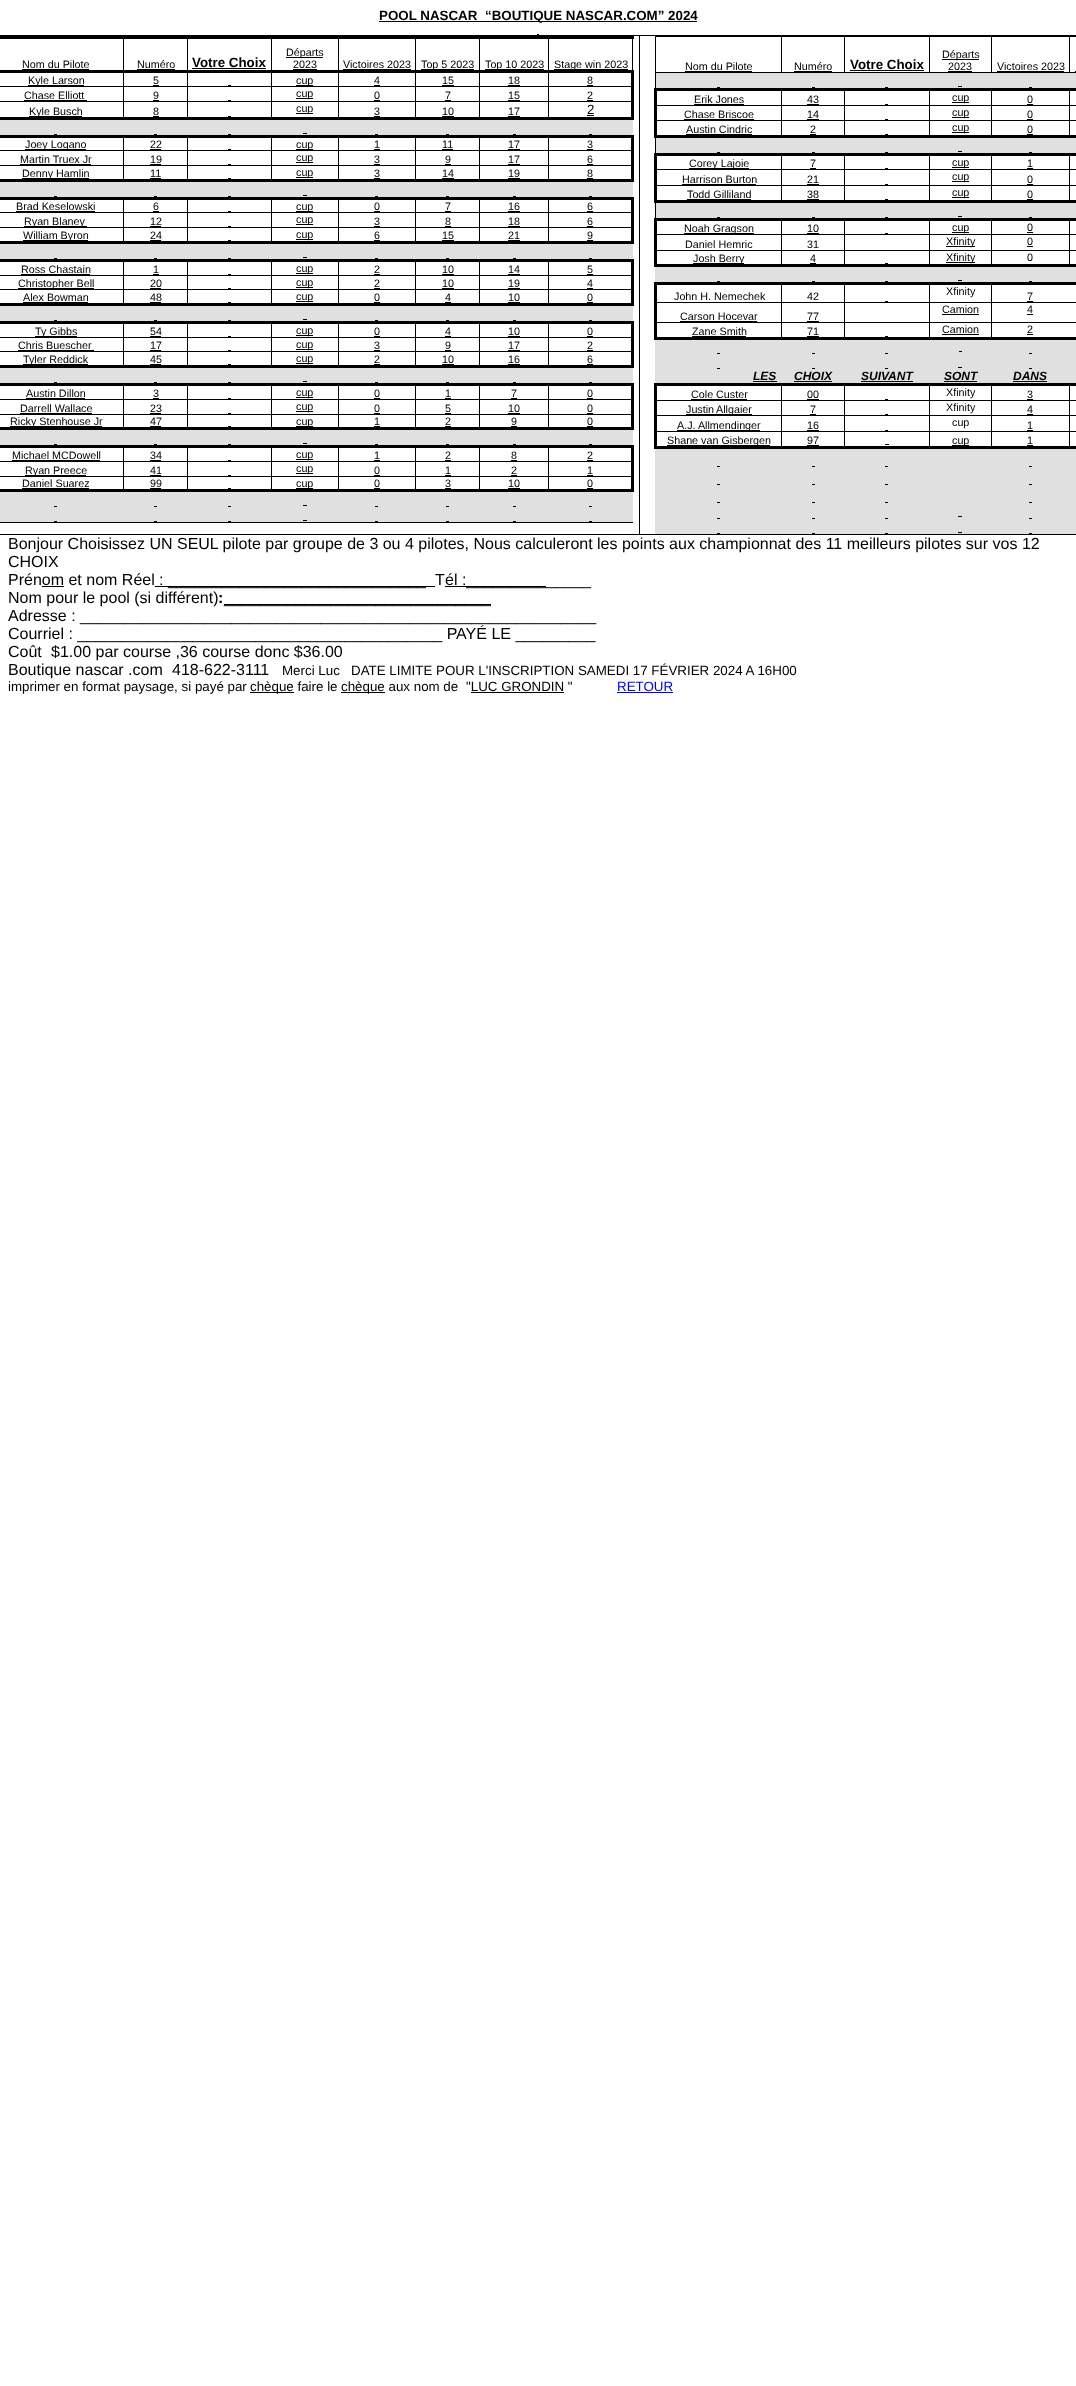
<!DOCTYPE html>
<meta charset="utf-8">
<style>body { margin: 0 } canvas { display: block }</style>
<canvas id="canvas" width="1076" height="2386"></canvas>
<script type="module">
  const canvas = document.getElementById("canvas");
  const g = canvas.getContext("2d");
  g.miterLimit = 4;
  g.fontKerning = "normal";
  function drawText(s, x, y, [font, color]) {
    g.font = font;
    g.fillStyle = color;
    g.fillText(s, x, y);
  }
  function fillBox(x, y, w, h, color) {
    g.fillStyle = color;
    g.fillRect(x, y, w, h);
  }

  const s1 = ["bold 13.35px Liberation Sans", "#000000"];
  const s2 = ["10.75px Liberation Sans", "#000000"];
  const s3 = ["13.35px Liberation Sans", "#000000"];
  const s4 = ["italic bold 12px Liberation Sans", "#000000"];
  const s5 = ["16px Liberation Sans", "#000000"];
  const s6 = ["bold 16px Liberation Sans", "#000000"];
  const s7 = ["13.35px Liberation Sans", "#0000FF"];

  fillBox(0, 0, 1076, 2386, "#FFFFFF");
  drawText("POOL NASCAR", 379, 20, s1);
  fillBox(379, 21, 318, 1, "#000000");
  drawText("“BOUTIQUE NASCAR.COM” 2024", 485, 20, s1);
  fillBox(537, 34, 2, 1, "#000000");
  fillBox(0, 35, 1076, 1, "#000000");
  fillBox(639, 534, 437, 1, "#000000");
  fillBox(639, 35, 1, 500, "#000000");
  fillBox(0, 534, 640, 1, "#000000");
  drawText("Nom du Pilote", 22, 68, s2);
  fillBox(22, 69, 67, 1, "#000000");
  drawText("Numéro", 137, 68, s2);
  fillBox(137, 69, 38, 1, "#000000");
  drawText("Votre Choix", 192, 67, s1);
  fillBox(192, 68, 74, 1, "#000000");
  fillBox(286, 57, 37, 1, "#000000");
  drawText("Départs", 286, 56, s2);
  drawText("2023", 293, 68, s2);
  fillBox(293, 69, 24, 1, "#000000");
  drawText("Victoires 2023", 343, 68, s2);
  fillBox(343, 69, 68, 1, "#000000");
  fillBox(421, 69, 53, 1, "#000000");
  fillBox(632, 37, 1, 35, "#000000");
  fillBox(548, 101, 1, 18, "#000000");
  fillBox(548, 101, 85, 1, "#000000");
  fillBox(548, 86, 1, 16, "#000000");
  fillBox(548, 86, 85, 1, "#000000");
  fillBox(548, 37, 1, 50, "#000000");
  fillBox(479, 101, 1, 18, "#000000");
  fillBox(479, 101, 70, 1, "#000000");
  fillBox(479, 86, 1, 16, "#000000");
  fillBox(479, 86, 70, 1, "#000000");
  fillBox(479, 37, 1, 50, "#000000");
  fillBox(415, 101, 1, 18, "#000000");
  fillBox(415, 101, 65, 1, "#000000");
  fillBox(415, 86, 1, 16, "#000000");
  fillBox(415, 86, 65, 1, "#000000");
  fillBox(415, 37, 1, 50, "#000000");
  fillBox(338, 101, 1, 18, "#000000");
  fillBox(338, 101, 78, 1, "#000000");
  fillBox(338, 86, 1, 16, "#000000");
  fillBox(338, 86, 78, 1, "#000000");
  fillBox(338, 37, 1, 50, "#000000");
  fillBox(271, 101, 1, 18, "#000000");
  fillBox(271, 101, 68, 1, "#000000");
  fillBox(271, 86, 1, 16, "#000000");
  fillBox(271, 86, 68, 1, "#000000");
  fillBox(271, 37, 1, 50, "#000000");
  fillBox(187, 101, 1, 18, "#000000");
  fillBox(187, 101, 85, 1, "#000000");
  fillBox(187, 86, 1, 16, "#000000");
  fillBox(187, 86, 85, 1, "#000000");
  fillBox(187, 37, 1, 50, "#000000");
  fillBox(123, 101, 1, 18, "#000000");
  fillBox(123, 101, 65, 1, "#000000");
  fillBox(123, 86, 1, 16, "#000000");
  fillBox(123, 86, 65, 1, "#000000");
  fillBox(123, 37, 1, 50, "#000000");
  fillBox(631, 70, 3, 50, "#000000");
  fillBox(0, 70, 634, 3, "#000000");
  drawText("Top 5 2023", 421, 68, s2);
  fillBox(485, 69, 59, 1, "#000000");
  drawText("Top 10 2023", 485, 68, s2);
  fillBox(0, 36, 634, 3, "#000000");
  fillBox(554, 69, 74, 1, "#000000");
  drawText("Stage win 2023", 554, 68, s2);
  fillBox(0, 86, 124, 1, "#000000");
  fillBox(28, 85, 56, 1, "#000000");
  drawText("Kyle Larson", 28, 84, s2);
  drawText("5", 153, 84, s2);
  fillBox(153, 85, 6, 1, "#000000");
  fillBox(228, 85, 3, 1, "#000000");
  fillBox(296, 85, 17, 1, "#000000");
  drawText("cup", 296, 84, s2);
  drawText("4", 374, 84, s2);
  fillBox(374, 85, 6, 1, "#000000");
  drawText("15", 442, 84, s2);
  fillBox(442, 85, 12, 1, "#000000");
  drawText("18", 508, 84, s2);
  fillBox(508, 85, 12, 1, "#000000");
  drawText("8", 587, 84, s2);
  fillBox(587, 85, 6, 1, "#000000");
  fillBox(0, 101, 124, 1, "#000000");
  drawText("Chase Elliott", 24, 99, s2);
  fillBox(24, 100, 63, 1, "#000000");
  drawText("9", 153, 99, s2);
  fillBox(153, 100, 6, 1, "#000000");
  fillBox(228, 100, 3, 1, "#000000");
  fillBox(296, 98, 17, 1, "#000000");
  drawText("cup", 296, 97, s2);
  drawText("0", 374, 99, s2);
  fillBox(374, 100, 6, 1, "#000000");
  drawText("7", 445, 99, s2);
  fillBox(445, 100, 6, 1, "#000000");
  drawText("15", 508, 99, s2);
  fillBox(508, 100, 12, 1, "#000000");
  drawText("2", 587, 99, s2);
  fillBox(587, 100, 6, 1, "#000000");
  fillBox(29, 116, 53, 1, "#000000");
  fillBox(0, 117, 634, 3, "#000000");
  drawText("Kyle Busch", 29, 115, s2);
  drawText("8", 153, 115, s2);
  fillBox(153, 116, 6, 1, "#000000");
  fillBox(228, 116, 3, 1, "#000000");
  fillBox(296, 113, 17, 1, "#000000");
  drawText("cup", 296, 112, s2);
  drawText("3", 374, 115, s2);
  fillBox(374, 116, 6, 1, "#000000");
  drawText("10", 442, 115, s2);
  fillBox(442, 116, 12, 1, "#000000");
  drawText("17", 508, 115, s2);
  fillBox(508, 116, 12, 1, "#000000");
  drawText("2", 587, 114, s3);
  fillBox(587, 115, 7, 1, "#000000");
  fillBox(0, 120, 633, 15, "#E0E0E0");
  fillBox(54, 134, 3, 1, "#000000");
  fillBox(303, 133, 4, 1, "#000000");
  fillBox(548, 165, 1, 16, "#000000");
  fillBox(548, 165, 85, 1, "#000000");
  fillBox(548, 150, 1, 16, "#000000");
  fillBox(548, 150, 85, 1, "#000000");
  fillBox(548, 136, 1, 15, "#000000");
  fillBox(479, 165, 1, 16, "#000000");
  fillBox(479, 165, 70, 1, "#000000");
  fillBox(479, 150, 1, 16, "#000000");
  fillBox(479, 150, 70, 1, "#000000");
  fillBox(479, 136, 1, 15, "#000000");
  fillBox(415, 165, 1, 16, "#000000");
  fillBox(415, 165, 65, 1, "#000000");
  fillBox(415, 150, 1, 16, "#000000");
  fillBox(415, 150, 65, 1, "#000000");
  fillBox(415, 136, 1, 15, "#000000");
  fillBox(338, 165, 1, 16, "#000000");
  fillBox(338, 165, 78, 1, "#000000");
  fillBox(338, 150, 1, 16, "#000000");
  fillBox(338, 150, 78, 1, "#000000");
  fillBox(338, 136, 1, 15, "#000000");
  fillBox(271, 165, 1, 16, "#000000");
  fillBox(271, 165, 68, 1, "#000000");
  fillBox(271, 150, 1, 16, "#000000");
  fillBox(271, 150, 68, 1, "#000000");
  fillBox(271, 136, 1, 15, "#000000");
  fillBox(187, 165, 1, 16, "#000000");
  fillBox(187, 165, 85, 1, "#000000");
  fillBox(187, 150, 1, 16, "#000000");
  fillBox(187, 150, 85, 1, "#000000");
  fillBox(187, 136, 1, 15, "#000000");
  fillBox(123, 165, 1, 16, "#000000");
  fillBox(123, 165, 65, 1, "#000000");
  fillBox(123, 150, 1, 16, "#000000");
  fillBox(123, 150, 65, 1, "#000000");
  fillBox(123, 136, 1, 15, "#000000");
  fillBox(631, 135, 3, 47, "#000000");
  fillBox(0, 135, 634, 3, "#000000");
  fillBox(589, 134, 3, 1, "#000000");
  fillBox(154, 134, 3, 1, "#000000");
  fillBox(228, 134, 3, 1, "#000000");
  fillBox(375, 134, 3, 1, "#000000");
  fillBox(446, 134, 3, 1, "#000000");
  fillBox(513, 134, 3, 1, "#000000");
  fillBox(0, 150, 124, 1, "#000000");
  fillBox(25, 149, 61, 1, "#000000");
  drawText("Joey Logano", 25, 148, s2);
  drawText("22", 150, 148, s2);
  fillBox(150, 149, 11, 1, "#000000");
  fillBox(228, 149, 3, 1, "#000000");
  fillBox(296, 149, 17, 1, "#000000");
  drawText("cup", 296, 148, s2);
  drawText("1", 374, 148, s2);
  fillBox(374, 149, 6, 1, "#000000");
  drawText("11", 442, 148, s2);
  fillBox(442, 149, 11, 1, "#000000");
  drawText("17", 508, 148, s2);
  fillBox(508, 149, 12, 1, "#000000");
  drawText("3", 587, 148, s2);
  fillBox(587, 149, 6, 1, "#000000");
  fillBox(0, 165, 124, 1, "#000000");
  drawText("Martin Truex Jr", 20, 163, s2);
  fillBox(20, 164, 71, 1, "#000000");
  drawText("19", 150, 163, s2);
  fillBox(150, 164, 11, 1, "#000000");
  fillBox(228, 164, 3, 1, "#000000");
  fillBox(296, 162, 17, 1, "#000000");
  drawText("cup", 296, 161, s2);
  drawText("3", 374, 163, s2);
  fillBox(374, 164, 6, 1, "#000000");
  drawText("9", 445, 163, s2);
  fillBox(445, 164, 6, 1, "#000000");
  drawText("17", 508, 163, s2);
  fillBox(508, 164, 12, 1, "#000000");
  drawText("6", 587, 163, s2);
  fillBox(587, 164, 6, 1, "#000000");
  fillBox(22, 178, 67, 1, "#000000");
  fillBox(0, 179, 634, 3, "#000000");
  drawText("Denny Hamlin", 22, 177, s2);
  drawText("11", 150, 177, s2);
  fillBox(150, 178, 11, 1, "#000000");
  fillBox(228, 178, 3, 1, "#000000");
  fillBox(296, 177, 17, 1, "#000000");
  drawText("cup", 296, 176, s2);
  drawText("3", 374, 177, s2);
  fillBox(374, 178, 6, 1, "#000000");
  drawText("14", 442, 177, s2);
  fillBox(442, 178, 12, 1, "#000000");
  drawText("19", 508, 177, s2);
  fillBox(508, 178, 12, 1, "#000000");
  drawText("8", 587, 177, s2);
  fillBox(587, 178, 6, 1, "#000000");
  fillBox(0, 182, 633, 15, "#E0E0E0");
  fillBox(54, 196, 3, 1, "#000000");
  fillBox(303, 195, 4, 1, "#000000");
  fillBox(548, 227, 1, 16, "#000000");
  fillBox(548, 227, 85, 1, "#000000");
  fillBox(548, 212, 1, 16, "#000000");
  fillBox(548, 212, 85, 1, "#000000");
  fillBox(548, 198, 1, 15, "#000000");
  fillBox(479, 227, 1, 16, "#000000");
  fillBox(479, 227, 70, 1, "#000000");
  fillBox(479, 212, 1, 16, "#000000");
  fillBox(479, 212, 70, 1, "#000000");
  fillBox(479, 198, 1, 15, "#000000");
  fillBox(415, 227, 1, 16, "#000000");
  fillBox(415, 227, 65, 1, "#000000");
  fillBox(415, 212, 1, 16, "#000000");
  fillBox(415, 212, 65, 1, "#000000");
  fillBox(415, 198, 1, 15, "#000000");
  fillBox(338, 227, 1, 16, "#000000");
  fillBox(338, 227, 78, 1, "#000000");
  fillBox(338, 212, 1, 16, "#000000");
  fillBox(338, 212, 78, 1, "#000000");
  fillBox(338, 198, 1, 15, "#000000");
  fillBox(271, 227, 1, 16, "#000000");
  fillBox(271, 227, 68, 1, "#000000");
  fillBox(271, 212, 1, 16, "#000000");
  fillBox(271, 212, 68, 1, "#000000");
  fillBox(271, 198, 1, 15, "#000000");
  fillBox(187, 227, 1, 16, "#000000");
  fillBox(187, 227, 85, 1, "#000000");
  fillBox(187, 212, 1, 16, "#000000");
  fillBox(187, 212, 85, 1, "#000000");
  fillBox(187, 198, 1, 15, "#000000");
  fillBox(123, 227, 1, 16, "#000000");
  fillBox(123, 227, 65, 1, "#000000");
  fillBox(123, 212, 1, 16, "#000000");
  fillBox(123, 212, 65, 1, "#000000");
  fillBox(123, 198, 1, 15, "#000000");
  fillBox(631, 197, 3, 47, "#000000");
  fillBox(0, 197, 634, 3, "#000000");
  fillBox(589, 196, 3, 1, "#000000");
  fillBox(154, 196, 3, 1, "#000000");
  fillBox(228, 196, 3, 1, "#000000");
  fillBox(375, 196, 3, 1, "#000000");
  fillBox(446, 196, 3, 1, "#000000");
  fillBox(513, 196, 3, 1, "#000000");
  fillBox(0, 212, 124, 1, "#000000");
  drawText("Brad Keselowski", 16, 210, s2);
  fillBox(16, 211, 79, 1, "#000000");
  drawText("6", 153, 210, s2);
  fillBox(153, 211, 6, 1, "#000000");
  fillBox(228, 211, 3, 1, "#000000");
  fillBox(296, 211, 17, 1, "#000000");
  drawText("cup", 296, 210, s2);
  drawText("0", 374, 210, s2);
  fillBox(374, 211, 6, 1, "#000000");
  drawText("7", 445, 210, s2);
  fillBox(445, 211, 6, 1, "#000000");
  drawText("16", 508, 210, s2);
  fillBox(508, 211, 12, 1, "#000000");
  drawText("6", 587, 210, s2);
  fillBox(587, 211, 6, 1, "#000000");
  fillBox(0, 227, 124, 1, "#000000");
  fillBox(24, 226, 60, 1, "#000000");
  drawText("Ryan Blaney", 24, 225, s2);
  fillBox(84, 226, 3, 1, "#000000");
  drawText("12", 150, 225, s2);
  fillBox(150, 226, 11, 1, "#000000");
  fillBox(228, 226, 3, 1, "#000000");
  fillBox(296, 224, 17, 1, "#000000");
  drawText("cup", 296, 223, s2);
  drawText("3", 374, 225, s2);
  fillBox(374, 226, 6, 1, "#000000");
  drawText("8", 445, 225, s2);
  fillBox(445, 226, 6, 1, "#000000");
  drawText("18", 508, 225, s2);
  fillBox(508, 226, 12, 1, "#000000");
  drawText("6", 587, 225, s2);
  fillBox(587, 226, 6, 1, "#000000");
  fillBox(23, 240, 65, 1, "#000000");
  fillBox(0, 241, 634, 3, "#000000");
  drawText("William Byron", 23, 239, s2);
  drawText("24", 150, 239, s2);
  fillBox(150, 240, 11, 1, "#000000");
  fillBox(228, 240, 3, 1, "#000000");
  fillBox(296, 239, 17, 1, "#000000");
  drawText("cup", 296, 238, s2);
  drawText("6", 374, 239, s2);
  fillBox(374, 240, 6, 1, "#000000");
  drawText("15", 442, 239, s2);
  fillBox(442, 240, 12, 1, "#000000");
  drawText("21", 508, 239, s2);
  fillBox(508, 240, 12, 1, "#000000");
  drawText("9", 587, 239, s2);
  fillBox(587, 240, 6, 1, "#000000");
  fillBox(0, 244, 633, 15, "#E0E0E0");
  fillBox(54, 258, 3, 1, "#000000");
  fillBox(303, 257, 4, 1, "#000000");
  fillBox(548, 289, 1, 16, "#000000");
  fillBox(548, 289, 85, 1, "#000000");
  fillBox(548, 275, 1, 15, "#000000");
  fillBox(548, 275, 85, 1, "#000000");
  fillBox(548, 260, 1, 16, "#000000");
  fillBox(479, 289, 1, 16, "#000000");
  fillBox(479, 289, 70, 1, "#000000");
  fillBox(479, 275, 1, 15, "#000000");
  fillBox(479, 275, 70, 1, "#000000");
  fillBox(479, 260, 1, 16, "#000000");
  fillBox(415, 289, 1, 16, "#000000");
  fillBox(415, 289, 65, 1, "#000000");
  fillBox(415, 275, 1, 15, "#000000");
  fillBox(415, 275, 65, 1, "#000000");
  fillBox(415, 260, 1, 16, "#000000");
  fillBox(338, 289, 1, 16, "#000000");
  fillBox(338, 289, 78, 1, "#000000");
  fillBox(338, 275, 1, 15, "#000000");
  fillBox(338, 275, 78, 1, "#000000");
  fillBox(338, 260, 1, 16, "#000000");
  fillBox(271, 289, 1, 16, "#000000");
  fillBox(271, 289, 68, 1, "#000000");
  fillBox(271, 275, 1, 15, "#000000");
  fillBox(271, 275, 68, 1, "#000000");
  fillBox(271, 260, 1, 16, "#000000");
  fillBox(187, 289, 1, 16, "#000000");
  fillBox(187, 289, 85, 1, "#000000");
  fillBox(187, 275, 1, 15, "#000000");
  fillBox(187, 275, 85, 1, "#000000");
  fillBox(187, 260, 1, 16, "#000000");
  fillBox(123, 289, 1, 16, "#000000");
  fillBox(123, 289, 65, 1, "#000000");
  fillBox(123, 275, 1, 15, "#000000");
  fillBox(123, 275, 65, 1, "#000000");
  fillBox(123, 260, 1, 16, "#000000");
  fillBox(631, 259, 3, 47, "#000000");
  fillBox(0, 259, 634, 3, "#000000");
  fillBox(589, 258, 3, 1, "#000000");
  fillBox(154, 258, 3, 1, "#000000");
  fillBox(228, 258, 3, 1, "#000000");
  fillBox(375, 258, 3, 1, "#000000");
  fillBox(446, 258, 3, 1, "#000000");
  fillBox(513, 258, 3, 1, "#000000");
  fillBox(0, 275, 124, 1, "#000000");
  drawText("Ross Chastain", 21, 273, s2);
  fillBox(21, 274, 69, 1, "#000000");
  drawText("1", 153, 273, s2);
  fillBox(153, 274, 6, 1, "#000000");
  fillBox(228, 274, 3, 1, "#000000");
  fillBox(296, 273, 17, 1, "#000000");
  drawText("cup", 296, 272, s2);
  drawText("2", 374, 273, s2);
  fillBox(374, 274, 6, 1, "#000000");
  drawText("10", 442, 273, s2);
  fillBox(442, 274, 12, 1, "#000000");
  drawText("14", 508, 273, s2);
  fillBox(508, 274, 12, 1, "#000000");
  drawText("5", 587, 273, s2);
  fillBox(587, 274, 6, 1, "#000000");
  fillBox(0, 289, 124, 1, "#000000");
  fillBox(18, 288, 76, 1, "#000000");
  drawText("Christopher Bell", 18, 287, s2);
  drawText("20", 150, 287, s2);
  fillBox(150, 288, 11, 1, "#000000");
  fillBox(228, 288, 3, 1, "#000000");
  fillBox(296, 287, 17, 1, "#000000");
  drawText("cup", 296, 286, s2);
  drawText("2", 374, 287, s2);
  fillBox(374, 288, 6, 1, "#000000");
  drawText("10", 442, 287, s2);
  fillBox(442, 288, 12, 1, "#000000");
  drawText("19", 508, 287, s2);
  fillBox(508, 288, 12, 1, "#000000");
  drawText("4", 587, 287, s2);
  fillBox(587, 288, 6, 1, "#000000");
  drawText("Alex Bowman", 23, 301, s2);
  fillBox(23, 302, 65, 1, "#000000");
  drawText("48", 150, 301, s2);
  fillBox(150, 302, 11, 1, "#000000");
  fillBox(228, 302, 3, 1, "#000000");
  fillBox(296, 301, 17, 1, "#000000");
  drawText("cup", 296, 300, s2);
  drawText("0", 374, 301, s2);
  fillBox(374, 302, 6, 1, "#000000");
  drawText("4", 445, 301, s2);
  fillBox(445, 302, 6, 1, "#000000");
  drawText("10", 508, 301, s2);
  fillBox(508, 302, 12, 1, "#000000");
  fillBox(0, 303, 634, 3, "#000000");
  drawText("0", 587, 301, s2);
  fillBox(587, 302, 6, 1, "#000000");
  fillBox(0, 306, 633, 15, "#E0E0E0");
  fillBox(54, 320, 3, 1, "#000000");
  fillBox(303, 319, 4, 1, "#000000");
  fillBox(548, 351, 1, 16, "#000000");
  fillBox(548, 351, 85, 1, "#000000");
  fillBox(548, 337, 1, 15, "#000000");
  fillBox(548, 337, 85, 1, "#000000");
  fillBox(548, 322, 1, 16, "#000000");
  fillBox(479, 351, 1, 16, "#000000");
  fillBox(479, 351, 70, 1, "#000000");
  fillBox(479, 337, 1, 15, "#000000");
  fillBox(479, 337, 70, 1, "#000000");
  fillBox(479, 322, 1, 16, "#000000");
  fillBox(415, 351, 1, 16, "#000000");
  fillBox(415, 351, 65, 1, "#000000");
  fillBox(415, 337, 1, 15, "#000000");
  fillBox(415, 337, 65, 1, "#000000");
  fillBox(415, 322, 1, 16, "#000000");
  fillBox(338, 351, 1, 16, "#000000");
  fillBox(338, 351, 78, 1, "#000000");
  fillBox(338, 337, 1, 15, "#000000");
  fillBox(338, 337, 78, 1, "#000000");
  fillBox(338, 322, 1, 16, "#000000");
  fillBox(271, 351, 1, 16, "#000000");
  fillBox(271, 351, 68, 1, "#000000");
  fillBox(271, 337, 1, 15, "#000000");
  fillBox(271, 337, 68, 1, "#000000");
  fillBox(271, 322, 1, 16, "#000000");
  fillBox(187, 351, 1, 16, "#000000");
  fillBox(187, 351, 85, 1, "#000000");
  fillBox(187, 337, 1, 15, "#000000");
  fillBox(187, 337, 85, 1, "#000000");
  fillBox(187, 322, 1, 16, "#000000");
  fillBox(123, 351, 1, 16, "#000000");
  fillBox(123, 351, 65, 1, "#000000");
  fillBox(123, 337, 1, 15, "#000000");
  fillBox(123, 337, 65, 1, "#000000");
  fillBox(123, 322, 1, 16, "#000000");
  fillBox(631, 321, 3, 47, "#000000");
  fillBox(0, 321, 634, 3, "#000000");
  fillBox(589, 320, 3, 1, "#000000");
  fillBox(154, 320, 3, 1, "#000000");
  fillBox(228, 320, 3, 1, "#000000");
  fillBox(375, 320, 3, 1, "#000000");
  fillBox(446, 320, 3, 1, "#000000");
  fillBox(513, 320, 3, 1, "#000000");
  fillBox(0, 337, 124, 1, "#000000");
  fillBox(35, 336, 42, 1, "#000000");
  drawText("Ty Gibbs", 35, 335, s2);
  drawText("54", 150, 335, s2);
  fillBox(150, 336, 11, 1, "#000000");
  fillBox(228, 336, 3, 1, "#000000");
  fillBox(296, 335, 17, 1, "#000000");
  drawText("cup", 296, 334, s2);
  drawText("0", 374, 335, s2);
  fillBox(374, 336, 6, 1, "#000000");
  drawText("4", 445, 335, s2);
  fillBox(445, 336, 6, 1, "#000000");
  drawText("10", 508, 335, s2);
  fillBox(508, 336, 12, 1, "#000000");
  drawText("0", 587, 335, s2);
  fillBox(587, 336, 6, 1, "#000000");
  fillBox(0, 351, 124, 1, "#000000");
  drawText("Chris Buescher", 18, 349, s2);
  fillBox(18, 350, 76, 1, "#000000");
  drawText("17", 150, 349, s2);
  fillBox(150, 350, 11, 1, "#000000");
  fillBox(228, 350, 3, 1, "#000000");
  fillBox(296, 349, 17, 1, "#000000");
  drawText("cup", 296, 348, s2);
  drawText("3", 374, 349, s2);
  fillBox(374, 350, 6, 1, "#000000");
  drawText("9", 445, 349, s2);
  fillBox(445, 350, 6, 1, "#000000");
  drawText("17", 508, 349, s2);
  fillBox(508, 350, 12, 1, "#000000");
  drawText("2", 587, 349, s2);
  fillBox(587, 350, 6, 1, "#000000");
  fillBox(23, 364, 65, 1, "#000000");
  fillBox(0, 365, 634, 3, "#000000");
  drawText("Tyler Reddick", 23, 363, s2);
  drawText("45", 150, 363, s2);
  fillBox(150, 364, 11, 1, "#000000");
  fillBox(228, 364, 3, 1, "#000000");
  fillBox(296, 363, 17, 1, "#000000");
  drawText("cup", 296, 362, s2);
  drawText("2", 374, 363, s2);
  fillBox(374, 364, 6, 1, "#000000");
  drawText("10", 442, 363, s2);
  fillBox(442, 364, 12, 1, "#000000");
  drawText("16", 508, 363, s2);
  fillBox(508, 364, 12, 1, "#000000");
  drawText("6", 587, 363, s2);
  fillBox(587, 364, 6, 1, "#000000");
  fillBox(0, 368, 633, 15, "#E0E0E0");
  fillBox(54, 382, 3, 1, "#000000");
  fillBox(303, 381, 4, 1, "#000000");
  fillBox(548, 414, 1, 15, "#000000");
  fillBox(548, 414, 85, 1, "#000000");
  fillBox(548, 399, 1, 16, "#000000");
  fillBox(548, 399, 85, 1, "#000000");
  fillBox(548, 384, 1, 16, "#000000");
  fillBox(479, 414, 1, 15, "#000000");
  fillBox(479, 414, 70, 1, "#000000");
  fillBox(479, 399, 1, 16, "#000000");
  fillBox(479, 399, 70, 1, "#000000");
  fillBox(479, 384, 1, 16, "#000000");
  fillBox(415, 414, 1, 15, "#000000");
  fillBox(415, 414, 65, 1, "#000000");
  fillBox(415, 399, 1, 16, "#000000");
  fillBox(415, 399, 65, 1, "#000000");
  fillBox(415, 384, 1, 16, "#000000");
  fillBox(338, 414, 1, 15, "#000000");
  fillBox(338, 414, 78, 1, "#000000");
  fillBox(338, 399, 1, 16, "#000000");
  fillBox(338, 399, 78, 1, "#000000");
  fillBox(338, 384, 1, 16, "#000000");
  fillBox(271, 414, 1, 15, "#000000");
  fillBox(271, 414, 68, 1, "#000000");
  fillBox(271, 399, 1, 16, "#000000");
  fillBox(271, 399, 68, 1, "#000000");
  fillBox(271, 384, 1, 16, "#000000");
  fillBox(187, 414, 1, 15, "#000000");
  fillBox(187, 414, 85, 1, "#000000");
  fillBox(187, 399, 1, 16, "#000000");
  fillBox(187, 399, 85, 1, "#000000");
  fillBox(187, 384, 1, 16, "#000000");
  fillBox(123, 414, 1, 15, "#000000");
  fillBox(123, 414, 65, 1, "#000000");
  fillBox(123, 399, 1, 16, "#000000");
  fillBox(123, 399, 65, 1, "#000000");
  fillBox(123, 384, 1, 16, "#000000");
  fillBox(631, 383, 3, 47, "#000000");
  fillBox(0, 383, 634, 3, "#000000");
  fillBox(589, 382, 3, 1, "#000000");
  fillBox(154, 382, 3, 1, "#000000");
  fillBox(228, 382, 3, 1, "#000000");
  fillBox(375, 382, 3, 1, "#000000");
  fillBox(446, 382, 3, 1, "#000000");
  fillBox(513, 382, 3, 1, "#000000");
  fillBox(0, 399, 124, 1, "#000000");
  drawText("Austin Dillon", 26, 397, s2);
  fillBox(26, 398, 59, 1, "#000000");
  drawText("3", 153, 397, s2);
  fillBox(153, 398, 6, 1, "#000000");
  fillBox(228, 398, 3, 1, "#000000");
  fillBox(296, 397, 17, 1, "#000000");
  drawText("cup", 296, 396, s2);
  drawText("0", 374, 397, s2);
  fillBox(374, 398, 6, 1, "#000000");
  drawText("1", 445, 397, s2);
  fillBox(445, 398, 6, 1, "#000000");
  drawText("7", 511, 397, s2);
  fillBox(511, 398, 6, 1, "#000000");
  drawText("0", 587, 397, s2);
  fillBox(587, 398, 6, 1, "#000000");
  fillBox(0, 414, 124, 1, "#000000");
  drawText("Darrell Wallace", 20, 412, s2);
  fillBox(20, 413, 72, 1, "#000000");
  drawText("23", 150, 412, s2);
  fillBox(150, 413, 11, 1, "#000000");
  fillBox(228, 413, 3, 1, "#000000");
  fillBox(296, 411, 17, 1, "#000000");
  drawText("cup", 296, 410, s2);
  drawText("0", 374, 412, s2);
  fillBox(374, 413, 6, 1, "#000000");
  drawText("5", 445, 412, s2);
  fillBox(445, 413, 6, 1, "#000000");
  drawText("10", 508, 412, s2);
  fillBox(508, 413, 12, 1, "#000000");
  drawText("0", 587, 412, s2);
  fillBox(587, 413, 6, 1, "#000000");
  fillBox(10, 426, 92, 1, "#000000");
  fillBox(0, 427, 634, 3, "#000000");
  drawText("Ricky Stenhouse Jr", 10, 425, s2);
  drawText("47", 150, 425, s2);
  fillBox(150, 426, 11, 1, "#000000");
  fillBox(228, 426, 3, 1, "#000000");
  fillBox(296, 426, 17, 1, "#000000");
  drawText("cup", 296, 425, s2);
  drawText("1", 374, 425, s2);
  fillBox(374, 426, 6, 1, "#000000");
  drawText("2", 445, 425, s2);
  fillBox(445, 426, 6, 1, "#000000");
  drawText("9", 511, 425, s2);
  fillBox(511, 426, 6, 1, "#000000");
  drawText("0", 587, 425, s2);
  fillBox(587, 426, 6, 1, "#000000");
  fillBox(0, 430, 633, 15, "#E0E0E0");
  fillBox(54, 444, 3, 1, "#000000");
  fillBox(303, 443, 4, 1, "#000000");
  fillBox(548, 476, 1, 15, "#000000");
  fillBox(548, 476, 85, 1, "#000000");
  fillBox(548, 461, 1, 16, "#000000");
  fillBox(548, 461, 85, 1, "#000000");
  fillBox(548, 446, 1, 16, "#000000");
  fillBox(479, 476, 1, 15, "#000000");
  fillBox(479, 476, 70, 1, "#000000");
  fillBox(479, 461, 1, 16, "#000000");
  fillBox(479, 461, 70, 1, "#000000");
  fillBox(479, 446, 1, 16, "#000000");
  fillBox(415, 476, 1, 15, "#000000");
  fillBox(415, 476, 65, 1, "#000000");
  fillBox(415, 461, 1, 16, "#000000");
  fillBox(415, 461, 65, 1, "#000000");
  fillBox(415, 446, 1, 16, "#000000");
  fillBox(338, 476, 1, 15, "#000000");
  fillBox(338, 476, 78, 1, "#000000");
  fillBox(338, 461, 1, 16, "#000000");
  fillBox(338, 461, 78, 1, "#000000");
  fillBox(338, 446, 1, 16, "#000000");
  fillBox(271, 476, 1, 15, "#000000");
  fillBox(271, 476, 68, 1, "#000000");
  fillBox(271, 461, 1, 16, "#000000");
  fillBox(271, 461, 68, 1, "#000000");
  fillBox(271, 446, 1, 16, "#000000");
  fillBox(187, 476, 1, 15, "#000000");
  fillBox(187, 476, 85, 1, "#000000");
  fillBox(187, 461, 1, 16, "#000000");
  fillBox(187, 461, 85, 1, "#000000");
  fillBox(187, 446, 1, 16, "#000000");
  fillBox(123, 476, 1, 15, "#000000");
  fillBox(123, 476, 65, 1, "#000000");
  fillBox(123, 461, 1, 16, "#000000");
  fillBox(123, 461, 65, 1, "#000000");
  fillBox(123, 446, 1, 16, "#000000");
  fillBox(631, 445, 3, 47, "#000000");
  fillBox(0, 445, 634, 3, "#000000");
  fillBox(589, 444, 3, 1, "#000000");
  fillBox(154, 444, 3, 1, "#000000");
  fillBox(228, 444, 3, 1, "#000000");
  fillBox(375, 444, 3, 1, "#000000");
  fillBox(446, 444, 3, 1, "#000000");
  fillBox(513, 444, 3, 1, "#000000");
  fillBox(0, 461, 124, 1, "#000000");
  drawText("Michael MCDowell", 12, 459, s2);
  fillBox(12, 460, 88, 1, "#000000");
  drawText("34", 150, 459, s2);
  fillBox(150, 460, 11, 1, "#000000");
  fillBox(228, 460, 3, 1, "#000000");
  fillBox(296, 459, 17, 1, "#000000");
  drawText("cup", 296, 458, s2);
  drawText("1", 374, 459, s2);
  fillBox(374, 460, 6, 1, "#000000");
  drawText("2", 445, 459, s2);
  fillBox(445, 460, 6, 1, "#000000");
  drawText("8", 511, 459, s2);
  fillBox(511, 460, 6, 1, "#000000");
  drawText("2", 587, 459, s2);
  fillBox(587, 460, 6, 1, "#000000");
  fillBox(0, 476, 124, 1, "#000000");
  fillBox(25, 475, 61, 1, "#000000");
  drawText("Ryan Preece", 25, 474, s2);
  drawText("41", 150, 474, s2);
  fillBox(150, 475, 11, 1, "#000000");
  fillBox(228, 475, 3, 1, "#000000");
  fillBox(296, 473, 17, 1, "#000000");
  drawText("cup", 296, 472, s2);
  drawText("0", 374, 474, s2);
  fillBox(374, 475, 6, 1, "#000000");
  drawText("1", 445, 474, s2);
  fillBox(445, 475, 6, 1, "#000000");
  drawText("2", 511, 474, s2);
  fillBox(511, 475, 6, 1, "#000000");
  drawText("1", 587, 474, s2);
  fillBox(587, 475, 6, 1, "#000000");
  drawText("Daniel Suarez", 22, 487, s2);
  fillBox(22, 488, 67, 1, "#000000");
  drawText("99", 150, 487, s2);
  fillBox(150, 488, 11, 1, "#000000");
  fillBox(228, 488, 3, 1, "#000000");
  fillBox(296, 488, 17, 1, "#000000");
  fillBox(0, 489, 634, 3, "#000000");
  drawText("cup", 296, 487, s2);
  drawText("0", 374, 487, s2);
  fillBox(374, 488, 6, 1, "#000000");
  drawText("3", 445, 487, s2);
  fillBox(445, 488, 6, 1, "#000000");
  drawText("10", 508, 487, s2);
  fillBox(508, 488, 12, 1, "#000000");
  drawText("0", 587, 487, s2);
  fillBox(587, 488, 6, 1, "#000000");
  fillBox(0, 492, 633, 15, "#E0E0E0");
  fillBox(54, 506, 3, 1, "#000000");
  fillBox(303, 505, 4, 1, "#000000");
  fillBox(154, 506, 3, 1, "#000000");
  fillBox(228, 506, 3, 1, "#000000");
  fillBox(375, 506, 3, 1, "#000000");
  fillBox(446, 506, 3, 1, "#000000");
  fillBox(513, 506, 3, 1, "#000000");
  fillBox(589, 506, 3, 1, "#000000");
  fillBox(0, 507, 633, 15, "#E0E0E0");
  fillBox(54, 521, 3, 1, "#000000");
  fillBox(303, 520, 4, 1, "#000000");
  fillBox(0, 522, 633, 1, "#000000");
  fillBox(589, 521, 3, 1, "#000000");
  fillBox(154, 521, 3, 1, "#000000");
  fillBox(228, 521, 3, 1, "#000000");
  fillBox(375, 521, 3, 1, "#000000");
  fillBox(446, 521, 3, 1, "#000000");
  fillBox(513, 521, 3, 1, "#000000");
  fillBox(655, 36, 421, 1, "#000000");
  fillBox(1069, 72, 7, 1, "#000000");
  fillBox(1075, 71, 1, 1, "#000000");
  fillBox(1069, 36, 1, 37, "#000000");
  fillBox(991, 72, 79, 1, "#000000");
  fillBox(991, 36, 1, 37, "#000000");
  fillBox(929, 72, 63, 1, "#000000");
  fillBox(929, 36, 1, 37, "#000000");
  fillBox(844, 72, 86, 1, "#000000");
  fillBox(844, 36, 1, 37, "#000000");
  fillBox(781, 72, 64, 1, "#000000");
  fillBox(781, 36, 1, 37, "#000000");
  fillBox(655, 72, 1, 18, "#000000");
  fillBox(655, 72, 127, 1, "#000000");
  fillBox(655, 36, 1, 37, "#000000");
  drawText("Nom du Pilote", 685, 70, s2);
  fillBox(685, 71, 67, 1, "#000000");
  drawText("Numéro", 794, 70, s2);
  fillBox(794, 71, 38, 1, "#000000");
  drawText("Votre Choix", 850, 69, s1);
  fillBox(850, 70, 74, 1, "#000000");
  fillBox(942, 59, 37, 1, "#000000");
  drawText("Départs", 942, 58, s2);
  drawText("2023", 948, 70, s2);
  fillBox(948, 71, 24, 1, "#000000");
  drawText("Victoires 2023", 997, 70, s2);
  fillBox(997, 71, 67, 1, "#000000");
  fillBox(656, 73, 413, 15, "#E0E0E0");
  fillBox(717, 87, 3, 1, "#000000");
  fillBox(1069, 73, 7, 17, "#E0E0E0");
  fillBox(1069, 136, 7, 18, "#E0E0E0");
  fillBox(1069, 120, 1, 17, "#000000");
  fillBox(1069, 120, 7, 1, "#000000");
  fillBox(1069, 105, 1, 16, "#000000");
  fillBox(1069, 105, 7, 1, "#000000");
  fillBox(1069, 89, 1, 17, "#000000");
  fillBox(991, 120, 1, 17, "#000000");
  fillBox(991, 120, 79, 1, "#000000");
  fillBox(991, 105, 1, 16, "#000000");
  fillBox(991, 105, 79, 1, "#000000");
  fillBox(991, 89, 1, 17, "#000000");
  fillBox(929, 120, 1, 17, "#000000");
  fillBox(929, 120, 63, 1, "#000000");
  fillBox(929, 105, 1, 16, "#000000");
  fillBox(929, 105, 63, 1, "#000000");
  fillBox(929, 89, 1, 17, "#000000");
  fillBox(844, 120, 1, 17, "#000000");
  fillBox(844, 120, 86, 1, "#000000");
  fillBox(844, 105, 1, 16, "#000000");
  fillBox(844, 105, 86, 1, "#000000");
  fillBox(844, 89, 1, 17, "#000000");
  fillBox(781, 120, 1, 17, "#000000");
  fillBox(781, 120, 64, 1, "#000000");
  fillBox(781, 105, 1, 16, "#000000");
  fillBox(781, 105, 64, 1, "#000000");
  fillBox(781, 89, 1, 17, "#000000");
  fillBox(655, 105, 127, 1, "#000000");
  fillBox(655, 120, 127, 1, "#000000");
  fillBox(655, 136, 1, 19, "#000000");
  fillBox(654, 135, 422, 3, "#000000");
  fillBox(654, 88, 3, 50, "#000000");
  fillBox(654, 88, 422, 3, "#000000");
  fillBox(958, 86, 4, 1, "#000000");
  fillBox(812, 87, 3, 1, "#000000");
  fillBox(885, 87, 3, 1, "#000000");
  fillBox(1029, 87, 3, 1, "#000000");
  drawText("Erik Jones", 694, 103, s2);
  fillBox(694, 104, 50, 1, "#000000");
  drawText("43", 807, 103, s2);
  fillBox(807, 104, 12, 1, "#000000");
  fillBox(885, 104, 3, 1, "#000000");
  fillBox(952, 102, 17, 1, "#000000");
  drawText("cup", 952, 101, s2);
  drawText("0", 1027, 103, s2);
  fillBox(1027, 104, 6, 1, "#000000");
  drawText("Chase Briscoe", 684, 118, s2);
  fillBox(684, 119, 70, 1, "#000000");
  drawText("14", 807, 118, s2);
  fillBox(807, 119, 12, 1, "#000000");
  fillBox(885, 119, 3, 1, "#000000");
  fillBox(952, 117, 17, 1, "#000000");
  drawText("cup", 952, 116, s2);
  drawText("0", 1027, 118, s2);
  fillBox(1027, 119, 6, 1, "#000000");
  drawText("Austin Cindric", 686, 133, s2);
  fillBox(686, 134, 66, 1, "#000000");
  drawText("2", 810, 133, s2);
  fillBox(810, 134, 6, 1, "#000000");
  fillBox(885, 134, 3, 1, "#000000");
  fillBox(952, 132, 17, 1, "#000000");
  drawText("cup", 952, 131, s2);
  drawText("0", 1027, 133, s2);
  fillBox(1027, 134, 6, 1, "#000000");
  fillBox(1069, 201, 7, 18, "#E0E0E0");
  fillBox(1069, 185, 1, 17, "#000000");
  fillBox(1069, 185, 7, 1, "#000000");
  fillBox(1069, 169, 1, 17, "#000000");
  fillBox(1069, 169, 7, 1, "#000000");
  fillBox(1069, 154, 1, 16, "#000000");
  fillBox(991, 185, 1, 17, "#000000");
  fillBox(991, 185, 79, 1, "#000000");
  fillBox(991, 169, 1, 17, "#000000");
  fillBox(991, 169, 79, 1, "#000000");
  fillBox(991, 154, 1, 16, "#000000");
  fillBox(929, 185, 1, 17, "#000000");
  fillBox(929, 185, 63, 1, "#000000");
  fillBox(929, 169, 1, 17, "#000000");
  fillBox(929, 169, 63, 1, "#000000");
  fillBox(929, 154, 1, 16, "#000000");
  fillBox(844, 185, 1, 17, "#000000");
  fillBox(844, 185, 86, 1, "#000000");
  fillBox(844, 169, 1, 17, "#000000");
  fillBox(844, 169, 86, 1, "#000000");
  fillBox(844, 154, 1, 16, "#000000");
  fillBox(781, 185, 1, 17, "#000000");
  fillBox(781, 185, 64, 1, "#000000");
  fillBox(781, 169, 1, 17, "#000000");
  fillBox(781, 169, 64, 1, "#000000");
  fillBox(781, 154, 1, 16, "#000000");
  fillBox(655, 169, 127, 1, "#000000");
  fillBox(655, 185, 127, 1, "#000000");
  fillBox(655, 201, 1, 19, "#000000");
  fillBox(654, 200, 422, 3, "#000000");
  fillBox(654, 153, 3, 50, "#000000");
  fillBox(654, 153, 422, 3, "#000000");
  fillBox(656, 138, 413, 15, "#E0E0E0");
  fillBox(717, 152, 3, 1, "#000000");
  fillBox(958, 151, 4, 1, "#000000");
  fillBox(812, 152, 3, 1, "#000000");
  fillBox(885, 152, 3, 1, "#000000");
  fillBox(1029, 152, 3, 1, "#000000");
  fillBox(689, 168, 60, 1, "#000000");
  drawText("Corey Lajoie", 689, 167, s2);
  drawText("7", 810, 167, s2);
  fillBox(810, 168, 6, 1, "#000000");
  fillBox(885, 168, 3, 1, "#000000");
  fillBox(952, 167, 17, 1, "#000000");
  drawText("cup", 952, 166, s2);
  drawText("1", 1027, 167, s2);
  fillBox(1027, 168, 6, 1, "#000000");
  drawText("Harrison Burton", 682, 183, s2);
  fillBox(682, 184, 74, 1, "#000000");
  drawText("21", 807, 183, s2);
  fillBox(807, 184, 12, 1, "#000000");
  fillBox(885, 184, 3, 1, "#000000");
  fillBox(952, 181, 17, 1, "#000000");
  drawText("cup", 952, 180, s2);
  drawText("0", 1027, 183, s2);
  fillBox(1027, 184, 6, 1, "#000000");
  drawText("Todd Gilliland", 687, 198, s2);
  fillBox(687, 199, 64, 1, "#000000");
  drawText("38", 807, 198, s2);
  fillBox(807, 199, 12, 1, "#000000");
  fillBox(885, 199, 3, 1, "#000000");
  fillBox(952, 197, 17, 1, "#000000");
  drawText("cup", 952, 196, s2);
  drawText("0", 1027, 198, s2);
  fillBox(1027, 199, 6, 1, "#000000");
  fillBox(1069, 250, 1, 16, "#000000");
  fillBox(1069, 250, 7, 1, "#000000");
  fillBox(1069, 234, 1, 17, "#000000");
  fillBox(1069, 234, 7, 1, "#000000");
  fillBox(1069, 219, 1, 16, "#000000");
  fillBox(991, 250, 1, 16, "#000000");
  fillBox(991, 250, 79, 1, "#000000");
  fillBox(991, 234, 1, 17, "#000000");
  fillBox(991, 234, 79, 1, "#000000");
  fillBox(991, 219, 1, 16, "#000000");
  fillBox(929, 250, 1, 16, "#000000");
  fillBox(929, 250, 63, 1, "#000000");
  fillBox(929, 234, 1, 17, "#000000");
  fillBox(929, 234, 63, 1, "#000000");
  fillBox(929, 219, 1, 16, "#000000");
  fillBox(844, 250, 1, 16, "#000000");
  fillBox(844, 250, 86, 1, "#000000");
  fillBox(844, 234, 1, 17, "#000000");
  fillBox(844, 234, 86, 1, "#000000");
  fillBox(844, 219, 1, 16, "#000000");
  fillBox(781, 250, 1, 16, "#000000");
  fillBox(781, 250, 64, 1, "#000000");
  fillBox(781, 234, 1, 17, "#000000");
  fillBox(781, 234, 64, 1, "#000000");
  fillBox(781, 219, 1, 16, "#000000");
  fillBox(655, 234, 127, 1, "#000000");
  fillBox(655, 250, 127, 1, "#000000");
  fillBox(1069, 266, 7, 18, "#E0E0E0");
  fillBox(654, 264, 422, 3, "#000000");
  fillBox(654, 218, 3, 49, "#000000");
  fillBox(654, 218, 422, 3, "#000000");
  fillBox(656, 203, 413, 15, "#E0E0E0");
  fillBox(717, 217, 3, 1, "#000000");
  fillBox(958, 216, 4, 1, "#000000");
  fillBox(812, 217, 3, 1, "#000000");
  fillBox(885, 217, 3, 1, "#000000");
  fillBox(1029, 217, 3, 1, "#000000");
  fillBox(684, 233, 70, 1, "#000000");
  drawText("Noah Gragson", 684, 232, s2);
  drawText("10", 807, 232, s2);
  fillBox(807, 233, 12, 1, "#000000");
  fillBox(885, 233, 3, 1, "#000000");
  fillBox(952, 232, 17, 1, "#000000");
  drawText("cup", 952, 231, s2);
  drawText("0", 1027, 231, s2);
  fillBox(1027, 232, 6, 1, "#000000");
  drawText("Daniel Hemric", 685, 248, s2);
  drawText("31", 807, 248, s2);
  fillBox(946, 246, 29, 1, "#000000");
  drawText("Xfinity", 946, 245, s2);
  drawText("0", 1027, 245, s2);
  fillBox(1027, 246, 6, 1, "#000000");
  fillBox(693, 263, 51, 1, "#000000");
  drawText("Josh Berry", 693, 262, s2);
  drawText("4", 810, 262, s2);
  fillBox(810, 263, 6, 1, "#000000");
  fillBox(885, 263, 3, 1, "#000000");
  fillBox(946, 262, 29, 1, "#000000");
  drawText("Xfinity", 946, 261, s2);
  drawText("0", 1027, 261, s2);
  fillBox(991, 322, 1, 17, "#000000");
  fillBox(991, 322, 85, 1, "#000000");
  fillBox(991, 302, 1, 21, "#000000");
  fillBox(991, 302, 85, 1, "#000000");
  fillBox(991, 283, 1, 20, "#000000");
  fillBox(929, 322, 1, 17, "#000000");
  fillBox(929, 322, 63, 1, "#000000");
  fillBox(929, 302, 1, 21, "#000000");
  fillBox(929, 302, 63, 1, "#000000");
  fillBox(929, 283, 1, 20, "#000000");
  fillBox(844, 322, 1, 17, "#000000");
  fillBox(844, 322, 86, 1, "#000000");
  fillBox(844, 302, 1, 21, "#000000");
  fillBox(844, 302, 86, 1, "#000000");
  fillBox(844, 283, 1, 20, "#000000");
  fillBox(781, 322, 1, 17, "#000000");
  fillBox(781, 322, 64, 1, "#000000");
  fillBox(781, 302, 1, 21, "#000000");
  fillBox(781, 302, 64, 1, "#000000");
  fillBox(781, 283, 1, 20, "#000000");
  fillBox(655, 302, 127, 1, "#000000");
  fillBox(655, 322, 127, 1, "#000000");
  fillBox(1069, 338, 7, 16, "#E0E0E0");
  fillBox(654, 337, 422, 3, "#000000");
  fillBox(654, 282, 3, 58, "#000000");
  fillBox(654, 282, 422, 3, "#000000");
  fillBox(655, 267, 414, 15, "#E0E0E0");
  fillBox(717, 281, 3, 1, "#000000");
  fillBox(958, 280, 4, 1, "#000000");
  fillBox(812, 281, 3, 1, "#000000");
  fillBox(885, 281, 3, 1, "#000000");
  fillBox(1029, 281, 3, 1, "#000000");
  drawText("John H. Nemechek", 674, 300, s2);
  drawText("42", 807, 300, s2);
  fillBox(885, 301, 3, 1, "#000000");
  drawText("Xfinity", 946, 295, s2);
  drawText("7", 1027, 300, s2);
  fillBox(1027, 301, 6, 1, "#000000");
  drawText("Camion", 942, 313, s2);
  fillBox(942, 314, 37, 1, "#000000");
  drawText("4", 1027, 313, s2);
  fillBox(1027, 314, 6, 1, "#000000");
  drawText("Carson Hocevar", 680, 320, s2);
  fillBox(680, 321, 77, 1, "#000000");
  drawText("77", 807, 320, s2);
  fillBox(807, 321, 12, 1, "#000000");
  drawText("Zane Smith", 692, 335, s2);
  fillBox(692, 336, 54, 1, "#000000");
  drawText("71", 807, 335, s2);
  fillBox(807, 336, 12, 1, "#000000");
  fillBox(885, 336, 3, 1, "#000000");
  drawText("Camion", 942, 333, s2);
  fillBox(942, 334, 37, 1, "#000000");
  drawText("2", 1027, 333, s2);
  fillBox(1027, 334, 6, 1, "#000000");
  fillBox(655, 340, 414, 14, "#E0E0E0");
  fillBox(717, 353, 3, 1, "#000000");
  fillBox(959, 351, 3, 1, "#000000");
  fillBox(812, 353, 3, 1, "#000000");
  fillBox(885, 353, 3, 1, "#000000");
  fillBox(1029, 353, 3, 1, "#000000");
  fillBox(655, 354, 421, 15, "#E0E0E0");
  fillBox(717, 368, 3, 1, "#000000");
  fillBox(958, 367, 4, 1, "#000000");
  fillBox(812, 368, 3, 1, "#000000");
  fillBox(885, 368, 3, 1, "#000000");
  fillBox(1029, 368, 3, 1, "#000000");
  fillBox(1069, 369, 7, 16, "#E0E0E0");
  fillBox(1069, 431, 1, 17, "#000000");
  fillBox(1069, 431, 7, 1, "#000000");
  fillBox(1069, 415, 1, 17, "#000000");
  fillBox(1069, 415, 7, 1, "#000000");
  fillBox(1069, 400, 1, 16, "#000000");
  fillBox(1069, 400, 7, 1, "#000000");
  fillBox(1069, 384, 1, 17, "#000000");
  fillBox(991, 431, 1, 17, "#000000");
  fillBox(991, 431, 79, 1, "#000000");
  fillBox(991, 415, 1, 17, "#000000");
  fillBox(991, 415, 79, 1, "#000000");
  fillBox(991, 400, 1, 16, "#000000");
  fillBox(991, 400, 79, 1, "#000000");
  fillBox(991, 384, 1, 17, "#000000");
  fillBox(929, 431, 1, 17, "#000000");
  fillBox(929, 431, 63, 1, "#000000");
  fillBox(929, 415, 1, 17, "#000000");
  fillBox(929, 415, 63, 1, "#000000");
  fillBox(929, 400, 1, 16, "#000000");
  fillBox(929, 400, 63, 1, "#000000");
  fillBox(929, 384, 1, 17, "#000000");
  fillBox(844, 431, 1, 17, "#000000");
  fillBox(844, 431, 86, 1, "#000000");
  fillBox(844, 415, 1, 17, "#000000");
  fillBox(844, 415, 86, 1, "#000000");
  fillBox(844, 400, 1, 16, "#000000");
  fillBox(844, 400, 86, 1, "#000000");
  fillBox(844, 384, 1, 17, "#000000");
  fillBox(781, 431, 1, 17, "#000000");
  fillBox(781, 431, 64, 1, "#000000");
  fillBox(781, 415, 1, 17, "#000000");
  fillBox(781, 415, 64, 1, "#000000");
  fillBox(781, 400, 1, 16, "#000000");
  fillBox(781, 400, 64, 1, "#000000");
  fillBox(781, 384, 1, 17, "#000000");
  fillBox(655, 400, 127, 1, "#000000");
  fillBox(655, 415, 127, 1, "#000000");
  fillBox(655, 431, 127, 1, "#000000");
  fillBox(1069, 448, 7, 19, "#E0E0E0");
  fillBox(654, 446, 422, 3, "#000000");
  fillBox(654, 383, 3, 66, "#000000");
  fillBox(654, 383, 422, 3, "#000000");
  fillBox(655, 369, 414, 14, "#E0E0E0");
  drawText("LES", 753, 380, s4);
  fillBox(753, 381, 24, 1, "#000000");
  drawText("CHOIX", 794, 380, s4);
  fillBox(794, 381, 38, 1, "#000000");
  drawText("SUIVANT", 861, 380, s4);
  fillBox(861, 381, 52, 1, "#000000");
  drawText("SONT", 944, 380, s4);
  fillBox(944, 381, 33, 1, "#000000");
  drawText("DANS", 1013, 380, s4);
  fillBox(1013, 381, 34, 1, "#000000");
  drawText("Cole Custer", 691, 398, s2);
  fillBox(691, 399, 56, 1, "#000000");
  drawText("00", 807, 398, s2);
  fillBox(807, 399, 12, 1, "#000000");
  fillBox(885, 399, 3, 1, "#000000");
  drawText("Xfinity", 946, 396, s2);
  drawText("3", 1027, 398, s2);
  fillBox(1027, 399, 6, 1, "#000000");
  drawText("Justin", 686, 413, s2);
  fillBox(686, 414, 66, 1, "#000000");
  drawText("Allgaier", 716, 413, s2);
  drawText("7", 810, 413, s2);
  fillBox(810, 414, 6, 1, "#000000");
  fillBox(885, 414, 3, 1, "#000000");
  drawText("Xfinity", 946, 411, s2);
  drawText("4", 1027, 413, s2);
  fillBox(1027, 414, 6, 1, "#000000");
  fillBox(677, 430, 83, 1, "#000000");
  drawText("A.J. Allmendinger", 677, 429, s2);
  drawText("16", 807, 429, s2);
  fillBox(807, 430, 12, 1, "#000000");
  fillBox(885, 430, 3, 1, "#000000");
  drawText("cup", 952, 426, s2);
  drawText("1", 1027, 429, s2);
  fillBox(1027, 430, 6, 1, "#000000");
  fillBox(667, 445, 103, 1, "#000000");
  drawText("Shane van Gisbergen", 667, 444, s2);
  drawText("97", 807, 444, s2);
  fillBox(807, 445, 12, 1, "#000000");
  fillBox(885, 444, 4, 1, "#000000");
  fillBox(952, 445, 17, 1, "#000000");
  drawText("cup", 952, 444, s2);
  drawText("1", 1027, 444, s2);
  fillBox(1027, 445, 6, 1, "#000000");
  fillBox(655, 449, 414, 18, "#E0E0E0");
  fillBox(717, 466, 3, 1, "#000000");
  fillBox(812, 466, 3, 1, "#000000");
  fillBox(885, 466, 3, 1, "#000000");
  fillBox(1029, 466, 3, 1, "#000000");
  fillBox(655, 467, 421, 18, "#E0E0E0");
  fillBox(717, 484, 3, 1, "#000000");
  fillBox(812, 484, 3, 1, "#000000");
  fillBox(885, 484, 3, 1, "#000000");
  fillBox(1029, 484, 3, 1, "#000000");
  fillBox(655, 485, 421, 18, "#E0E0E0");
  fillBox(717, 502, 3, 1, "#000000");
  fillBox(812, 502, 3, 1, "#000000");
  fillBox(885, 502, 3, 1, "#000000");
  fillBox(1029, 502, 3, 1, "#000000");
  fillBox(655, 503, 421, 16, "#E0E0E0");
  fillBox(717, 518, 3, 1, "#000000");
  fillBox(958, 516, 4, 1, "#000000");
  fillBox(812, 518, 3, 1, "#000000");
  fillBox(885, 518, 3, 1, "#000000");
  fillBox(1029, 518, 3, 1, "#000000");
  fillBox(655, 519, 421, 15, "#E0E0E0");
  fillBox(717, 533, 3, 1, "#000000");
  fillBox(958, 532, 4, 1, "#000000");
  fillBox(812, 533, 3, 1, "#000000");
  fillBox(885, 533, 3, 1, "#000000");
  fillBox(1029, 533, 3, 1, "#000000");
  drawText("Bonjour Choisissez UN SEUL pilote par groupe de 3 ou 4 pilotes, Nous calculeront les points aux championnat des 11 meilleurs pilotes sur vos 12", 8, 549, s5);
  drawText("CHOIX", 8, 567, s5);
  drawText("Prénom et nom Réel", 8, 585, s5);
  fillBox(42, 586, 22, 1, "#000000");
  fillBox(155, 586, 271, 1, "#000000");
  drawText(": _____________________________", 159, 585, s5);
  fillBox(426, 586, 9, 1, "#000000");
  drawText("T", 435, 585, s5);
  fillBox(445, 586, 101, 1, "#000000");
  drawText("él :______________", 445, 585, s5);
  drawText("Nom pour le pool (si différent)", 8, 603, s5);
  drawText(":", 218, 603, s6);
  drawText("______________________________", 224, 603, s5);
  fillBox(224, 604, 267, 1, "#000000");
  drawText("Adresse : __________________________________________________________", 8, 621, s5);
  drawText("Courriel : _________________________________________ PAYÉ LE _________", 8, 639, s5);
  drawText("Coût", 8, 657, s5);
  drawText("$1.00 par course ,36 course donc $36.00", 51, 657, s5);
  drawText("Boutique nascar .com", 8, 675, s5);
  drawText("418-622-3111", 172, 675, s5);
  drawText("Merci Luc", 282, 675, s3);
  drawText("DATE LIMITE POUR L'INSCRIPTION SAMEDI 17 FÉVRIER 2024 A 16H00", 351, 675, s3);
  drawText("imprimer en format paysage, si payé par", 8, 691, s3);
  fillBox(250, 692, 44, 1, "#000000");
  drawText("chèque faire le", 250, 691, s3);
  fillBox(341, 692, 44, 1, "#000000");
  drawText("chèque aux nom de", 341, 691, s3);
  drawText("\"LUC GRONDIN \"", 466, 691, s3);
  fillBox(471, 692, 93, 1, "#000000");
  drawText("RETOUR", 617, 691, s7);
  fillBox(617, 692, 56, 1, "#0000FF");
</script>
